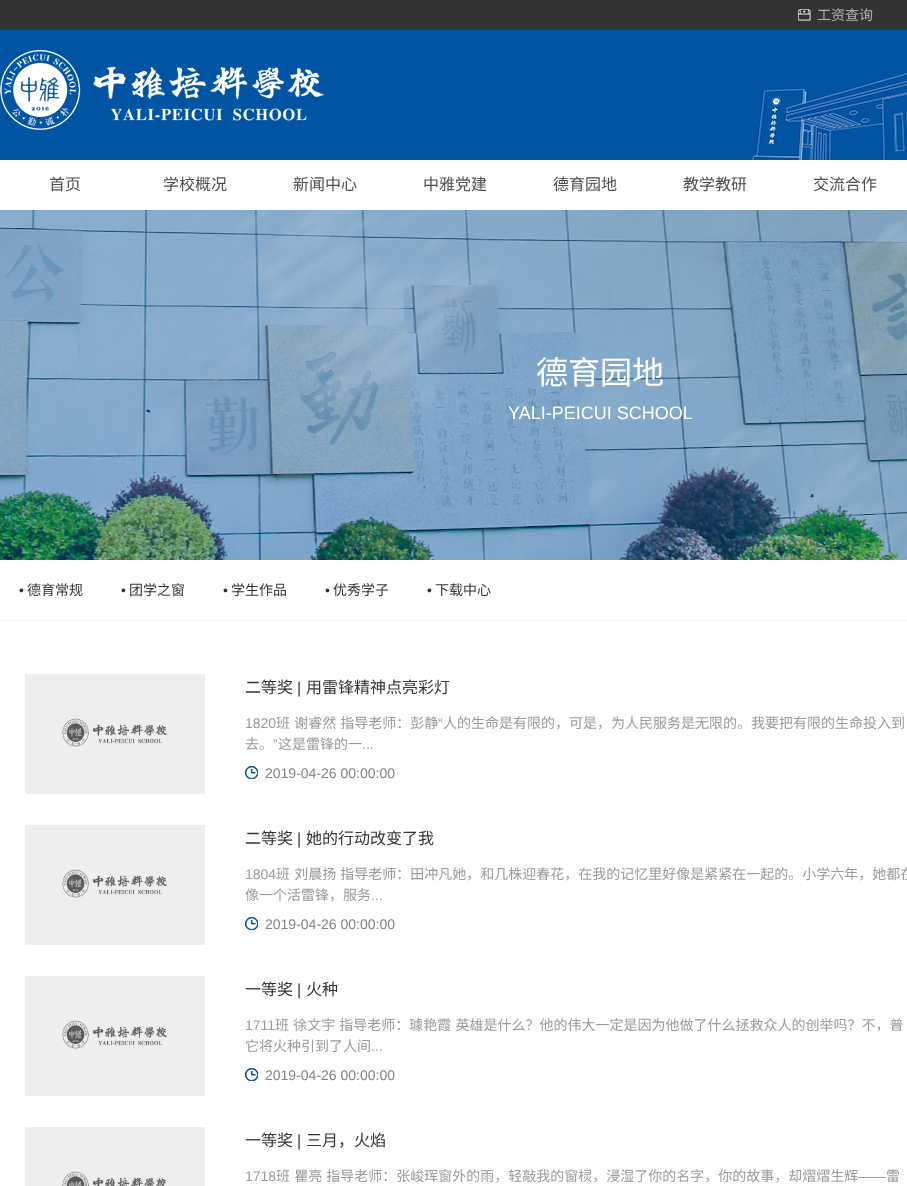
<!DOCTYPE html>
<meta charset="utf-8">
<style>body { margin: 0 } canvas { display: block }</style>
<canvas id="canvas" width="907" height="1186"></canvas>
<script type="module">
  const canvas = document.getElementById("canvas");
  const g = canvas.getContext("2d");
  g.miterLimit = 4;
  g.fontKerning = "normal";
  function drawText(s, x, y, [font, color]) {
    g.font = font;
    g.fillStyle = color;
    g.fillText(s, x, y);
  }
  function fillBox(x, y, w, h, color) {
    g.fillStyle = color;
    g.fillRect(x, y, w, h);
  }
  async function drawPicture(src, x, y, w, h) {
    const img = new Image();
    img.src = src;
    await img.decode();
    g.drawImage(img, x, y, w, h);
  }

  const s1 = ["14px Noto Sans CJK SC", "#B2B2B2"];
  const s2 = ["16px Noto Sans CJK SC", "#4D4D4D"];
  const s3 = ["32px Noto Sans CJK SC", "#FFFFFF"];
  const s4 = ["18px Liberation Sans", "#FFFFFF"];
  const s5 = ["14px Liberation Sans", "#333333"];
  const s6 = ["14px Noto Sans CJK SC", "#333333"];
  const s7 = ["16px Noto Sans CJK SC", "#333333"];
  const s8 = ["16px Liberation Sans", "#333333"];
  const s9 = ["14px Liberation Sans", "#999999"];
  const s10 = ["14px Noto Sans CJK SC", "#999999"];
  const s11 = ["14px Liberation Sans", "#808080"];

  fillBox(0, 0, 907, 1186, "#FFFFFF");
  fillBox(0, 0, 907, 30, "#333333");
  await drawPicture("pic1.png", 798, 9, 13, 12);
  drawText("工资查询", 817, 20, s1);
  fillBox(0, 30, 907, 130, "#0054A4");
  await drawPicture("pic2.png", 0, 50, 324, 80);
  await drawPicture("pic3.png", 752, 72, 155, 88);
  drawText("首页", 49, 190, s2);
  drawText("学校概况", 163, 190, s2);
  drawText("新闻中心", 293, 190, s2);
  drawText("中雅党建", 423, 190, s2);
  drawText("德育园地", 553, 190, s2);
  drawText("教学教研", 683, 190, s2);
  drawText("交流合作", 813, 190, s2);
  await drawPicture("pic4.png", 0, 210, 907, 350);
  drawText("德育园地", 536, 384, s3);
  drawText("YALI-PEICUI SCHOOL", 508, 419, s4);
  fillBox(0, 620, 907, 1, "#F5F5F5");
  drawText("•", 19, 595, s5);
  drawText("德育常规", 27, 595, s6);
  drawText("•", 121, 595, s5);
  drawText("团学之窗", 129, 595, s6);
  drawText("•", 223, 595, s5);
  drawText("学生作品", 231, 595, s6);
  drawText("•", 325, 595, s5);
  drawText("优秀学子", 333, 595, s6);
  drawText("•", 427, 595, s5);
  drawText("下载中心", 435, 595, s6);
  await drawPicture("pic5.png", 25, 674, 180, 120);
  drawText("二等奖", 245, 693, s7);
  drawText("|", 297, 693, s8);
  drawText("用雷锋精神点亮彩灯", 306, 693, s7);
  drawText("1820", 245, 728, s9);
  g.wordSpacing = "1px";
  drawText("班 谢睿然 指导老师：彭静", 276, 728, s10);
  g.wordSpacing = "0px";
  drawText("“", 438, 728, s9);
  drawText("人的生命是有限的，可是，为人民服务是无限的。我要把有限的生命投入到", 443, 728, s10);
  drawText("去。", 245, 749, s10);
  drawText("”", 273, 749, s9);
  drawText("这是雷锋的一", 278, 749, s10);
  drawText("...", 362, 749, s9);
  await drawPicture("pic6.png", 245, 766, 13, 13);
  drawText("2019-04-26 00:00:00", 265, 778, s11);
  await drawPicture("pic7.png", 25, 825, 180, 120);
  drawText("二等奖", 245, 844, s7);
  drawText("|", 297, 844, s8);
  drawText("她的行动改变了我", 306, 844, s7);
  drawText("1804", 245, 879, s9);
  g.wordSpacing = "1px";
  drawText("班 刘晨扬 指导老师：田冲凡她，和几株迎春花，在我的记忆里好像是紧紧在一起的。小学六年，她都在", 276, 879, s10);
  g.wordSpacing = "0px";
  drawText("像一个活雷锋，服务", 245, 900, s10);
  drawText("...", 371, 900, s9);
  await drawPicture("pic6.png", 245, 917, 13, 13);
  drawText("2019-04-26 00:00:00", 265, 929, s11);
  await drawPicture("pic7.png", 25, 976, 180, 120);
  drawText("一等奖", 245, 995, s7);
  drawText("|", 297, 995, s8);
  drawText("火种", 306, 995, s7);
  drawText("1711", 245, 1030, s9);
  g.wordSpacing = "1px";
  drawText("班 徐文宇 指导老师：璩艳霞 英雄是什么？他的伟大一定是因为他做了什么拯救众人的创举吗？不，普", 275, 1030, s10);
  g.wordSpacing = "0px";
  drawText("它将火种引到了人间", 245, 1051, s10);
  drawText("...", 371, 1051, s9);
  await drawPicture("pic6.png", 245, 1068, 13, 13);
  drawText("2019-04-26 00:00:00", 265, 1080, s11);
  await drawPicture("pic8.png", 25, 1127, 180, 59);
  drawText("一等奖", 245, 1146, s7);
  drawText("|", 297, 1146, s8);
  drawText("三月，火焰", 306, 1146, s7);
  drawText("1718", 245, 1181, s9);
  g.wordSpacing = "1px";
  drawText("班 瞿亮 指导老师：张峻珲窗外的雨，轻敲我的窗棂，浸湿了你的名字，你的故事，却熠熠生辉", 276, 1181, s10);
  g.wordSpacing = "0px";
  drawText("——", 858, 1181, s9);
  drawText("雷", 886, 1181, s10);
</script>
